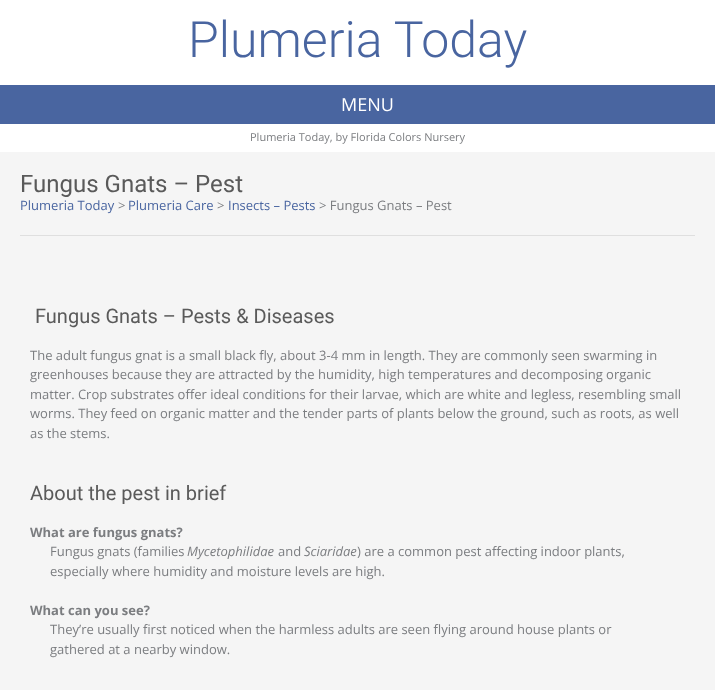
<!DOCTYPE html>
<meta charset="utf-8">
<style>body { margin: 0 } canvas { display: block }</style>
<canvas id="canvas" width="715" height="690"></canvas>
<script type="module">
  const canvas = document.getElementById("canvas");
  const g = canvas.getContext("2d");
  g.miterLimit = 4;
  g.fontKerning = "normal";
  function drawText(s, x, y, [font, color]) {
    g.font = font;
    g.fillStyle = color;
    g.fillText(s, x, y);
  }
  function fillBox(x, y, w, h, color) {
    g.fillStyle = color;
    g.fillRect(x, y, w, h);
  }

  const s1 = ["300 50px Roboto", "#4965A0"];
  const s2 = ["18px Open Sans", "#FFFFFF"];
  const s3 = ["11px Open Sans", "#7B7D80"];
  const s4 = ["24px Roboto", "#5A5A5A"];
  const s5 = ["13px Open Sans", "#4965A0"];
  const s6 = ["13px Open Sans", "#7B7D80"];
  const s7 = ["20px Roboto", "#5A5A5A"];
  const s8 = ["bold 13px Open Sans", "#7B7D80"];
  const s9 = ["italic 13px Open Sans", "#7B7D80"];

  fillBox(0, 0, 715, 690, "#F5F5F5");
  fillBox(0, 0, 715, 85, "#FFFFFF");
  drawText("Plumeria Today", 188, 57, s1);
  fillBox(0, 85, 715, 39, "#4965A0");
  drawText("MENU", 341, 111, s2);
  fillBox(0, 124, 715, 28, "#FFFFFF");
  drawText("Plumeria Today, by Florida Colors Nursery", 250, 141, s3);
  fillBox(20, 235, 675, 1, "#DFDFDF");
  drawText("Fungus Gnats – Pest", 20, 192, s4);
  drawText("Plumeria Today", 20, 210, s5);
  drawText(">", 118, 210, s6);
  drawText("Plumeria Care", 128, 210, s5);
  drawText(">", 217, 210, s6);
  drawText("Insects – Pests", 228, 210, s5);
  drawText("> Fungus Gnats – Pest", 319, 210, s6);
  drawText("Fungus Gnats – Pests & Diseases", 35, 323, s7);
  drawText("The adult fungus gnat is a small black fly, about 3-4 mm in length. They are commonly seen swarming in", 30, 360, s6);
  drawText("greenhouses because they are attracted by the humidity, high temperatures and decomposing organic", 30, 379, s6);
  drawText("matter. Crop substrates offer ideal conditions for their larvae, which are white and legless, resembling small", 30, 399, s6);
  drawText("worms. They feed on organic matter and the tender parts of plants below the ground, such as roots, as well", 30, 418, s6);
  drawText("as the stems.", 30, 438, s6);
  drawText("About the pest in brief", 30, 500, s7);
  drawText("What are fungus gnats?", 30, 537, s8);
  drawText("Fungus gnats (families", 50, 556, s6);
  drawText("Mycetophilidae", 187, 556, s9);
  drawText("and", 278, 556, s6);
  drawText("Sciaridae", 304, 556, s9);
  drawText(") are a common pest affecting indoor plants,", 357, 556, s6);
  drawText("especially where humidity and moisture levels are high.", 50, 576, s6);
  drawText("What can you see?", 30, 615, s8);
  drawText("They’re usually first noticed when the harmless adults are seen flying around house plants or", 50, 634, s6);
  drawText("gathered at a nearby window.", 50, 654, s6);
</script>
